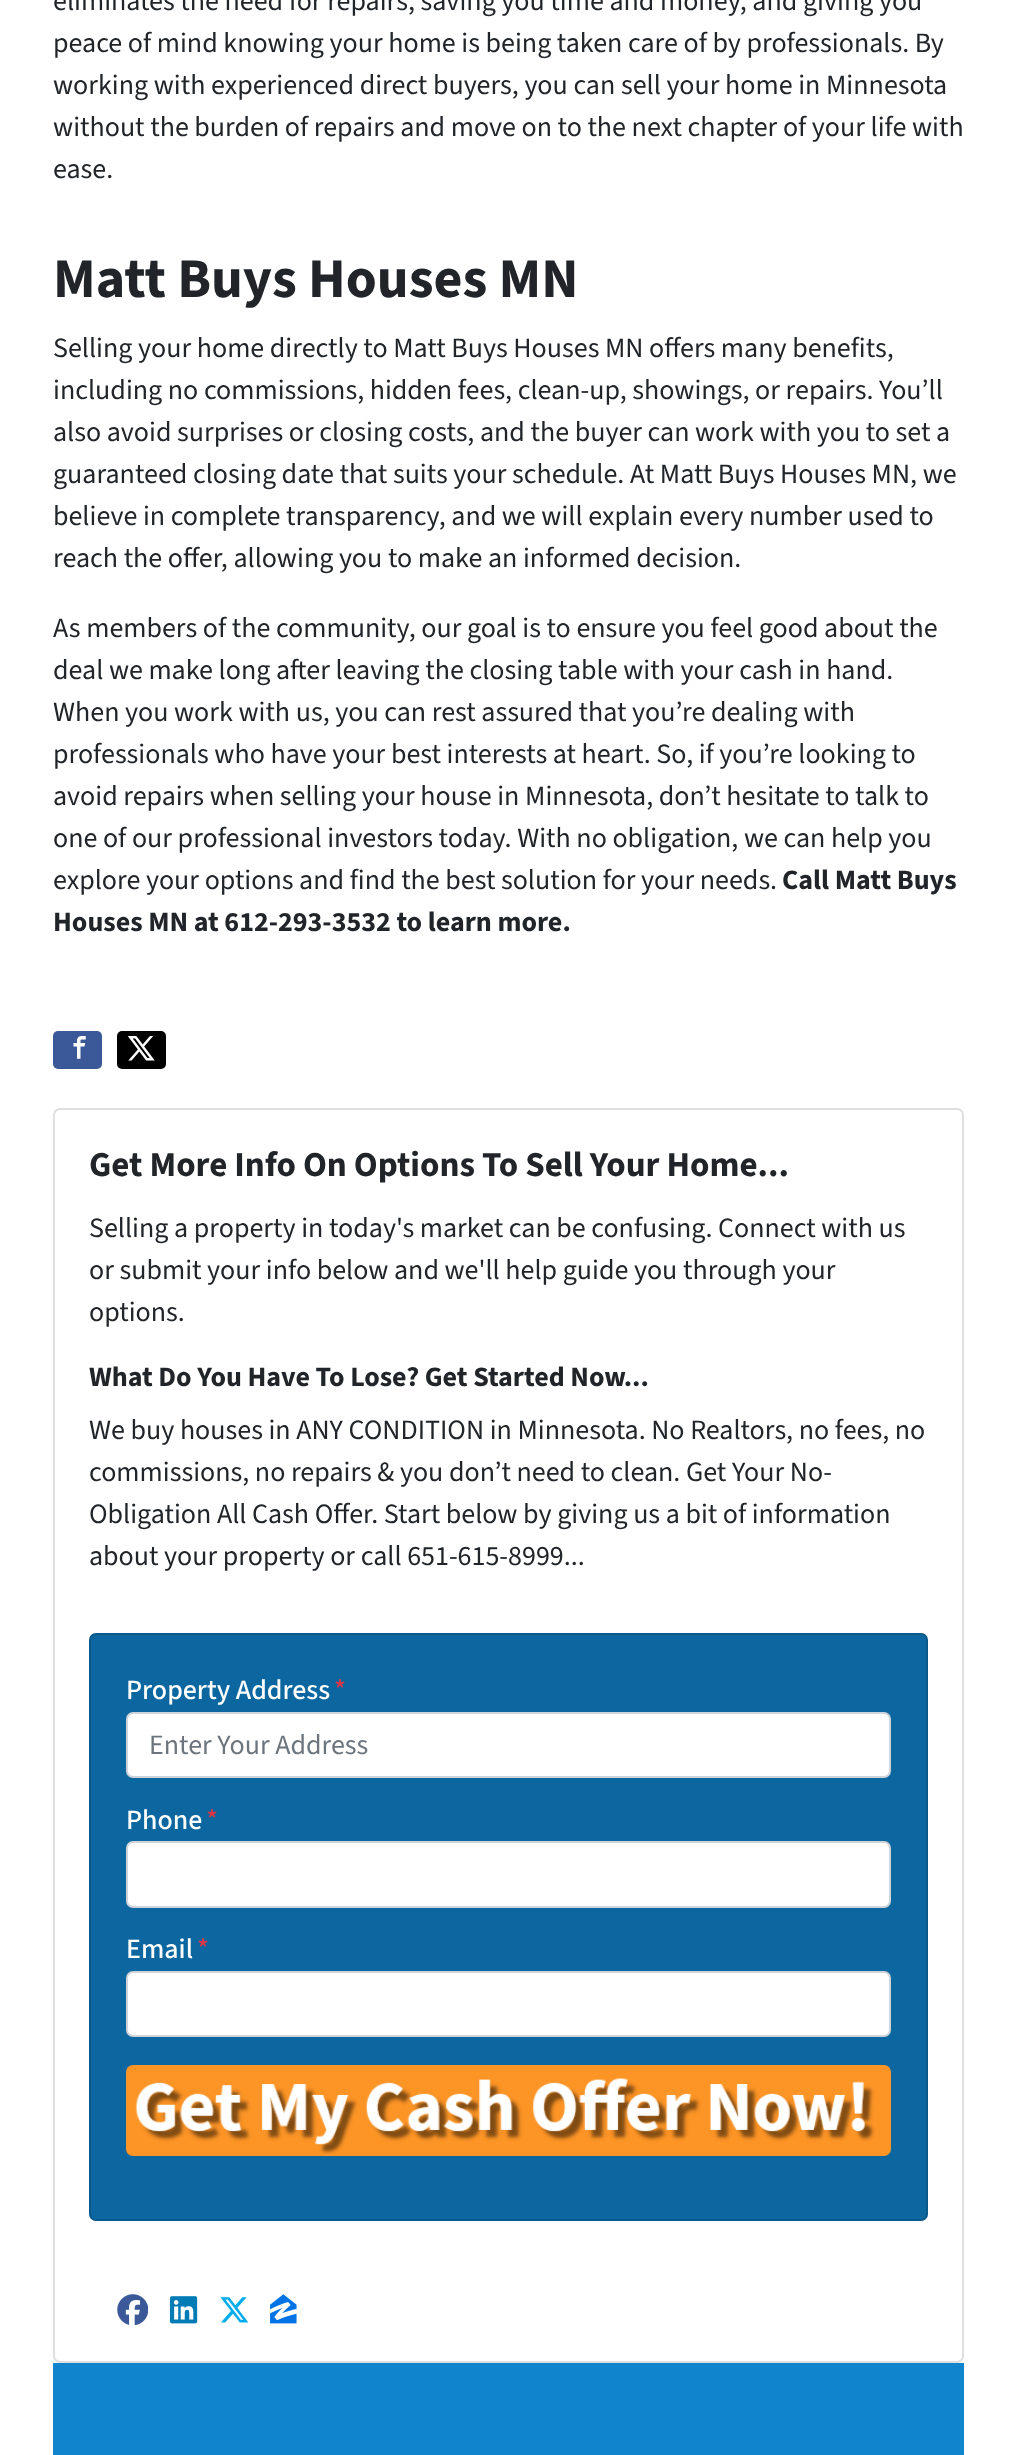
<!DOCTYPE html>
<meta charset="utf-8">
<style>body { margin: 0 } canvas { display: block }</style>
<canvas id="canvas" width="1016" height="2455"></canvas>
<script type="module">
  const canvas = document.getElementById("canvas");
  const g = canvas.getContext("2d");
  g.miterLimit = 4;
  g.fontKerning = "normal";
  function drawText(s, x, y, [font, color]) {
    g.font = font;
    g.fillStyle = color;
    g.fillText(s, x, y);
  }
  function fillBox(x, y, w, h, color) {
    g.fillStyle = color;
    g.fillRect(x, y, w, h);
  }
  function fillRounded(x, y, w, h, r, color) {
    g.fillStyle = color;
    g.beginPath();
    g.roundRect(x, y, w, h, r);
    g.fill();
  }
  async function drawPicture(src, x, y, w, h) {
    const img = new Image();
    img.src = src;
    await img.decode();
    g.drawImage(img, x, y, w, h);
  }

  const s1 = ["28px 'Source Sans 3'", "#212529"];
  const s2 = ["bold 56px 'Source Sans 3'", "#212529"];
  const s3 = ["bold 28px 'Source Sans 3'", "#212529"];
  const s4 = ["bold 35px 'Source Sans 3'", "#212529"];
  const s5 = ["500 28px 'Source Sans 3'", "#FFFFFF"];
  const s6 = ["500 28px 'Source Sans 3'", "#DC3545"];
  const s7 = ["28px 'Source Sans 3'", "#6C757D"];

  fillBox(0, 0, 1016, 2455, "#FFFFFF");
  drawText("eliminates the need for repairs, saving you time and money, and giving you", 53, 10, s1);
  drawText("peace of mind knowing your home is being taken care of by professionals. By", 53, 52, s1);
  drawText("working with experienced direct buyers, you can sell your home in Minnesota", 53, 94, s1);
  drawText("without the burden of repairs and move on to the next chapter of your life with", 53, 136, s1);
  drawText("ease.", 53, 178, s1);
  drawText("Matt Buys Houses MN", 53, 297, s2);
  drawText("Selling your home directly to Matt Buys Houses MN offers many benefits,", 53, 357, s1);
  drawText("including no commissions, hidden fees, clean-up, showings, or repairs. You’ll", 53, 399, s1);
  drawText("also avoid surprises or closing costs, and the buyer can work with you to set a", 53, 441, s1);
  drawText("guaranteed closing date that suits your schedule. At Matt Buys Houses MN, we", 53, 483, s1);
  drawText("believe in complete transparency, and we will explain every number used to", 53, 525, s1);
  drawText("reach the offer, allowing you to make an informed decision.", 53, 567, s1);
  drawText("As members of the community, our goal is to ensure you feel good about the", 53, 637, s1);
  drawText("deal we make long after leaving the closing table with your cash in hand.", 53, 679, s1);
  drawText("When you work with us, you can rest assured that you’re dealing with", 53, 721, s1);
  drawText("professionals who have your best interests at heart. So, if you’re looking to", 53, 763, s1);
  drawText("avoid repairs when selling your house in Minnesota, don’t hesitate to talk to", 53, 805, s1);
  drawText("one of our professional investors today. With no obligation, we can help you", 53, 847, s1);
  drawText("explore your options and find the best solution for your needs.", 53, 889, s1);
  drawText("Call Matt Buys", 782, 889, s3);
  drawText("Houses MN at 612-293-3532 to learn more.", 53, 931, s3);
  fillRounded(53, 1031, 49, 38, 5, "#3B5998");
  await drawPicture("pic1.png", 73, 1036, 13, 23);
  fillRounded(117, 1031, 49, 38, 5, "#000000");
  await drawPicture("pic2.png", 128, 1036, 27, 25);
  g.beginPath();
  g.roundRect(54, 1109, 909, 1253, 6);
  g.strokeStyle = "#DFDFDF";
  g.lineWidth = 2;
  g.stroke();
  drawText("Get More Info On Options To Sell Your Home...", 89, 1176, s4);
  drawText("Selling a property in today's market can be confusing. Connect with us", 89, 1237, s1);
  drawText("or submit your info below and we'll help guide you through your", 89, 1279, s1);
  drawText("options.", 89, 1321, s1);
  drawText("What Do You Have To Lose? Get Started Now...", 89, 1386, s3);
  drawText("We buy houses in ANY CONDITION in Minnesota. No Realtors, no fees, no", 89, 1439, s1);
  drawText("commissions, no repairs & you don’t need to clean. Get Your No-", 89, 1481, s1);
  drawText("Obligation All Cash Offer. Start below by giving us a bit of information", 89, 1523, s1);
  drawText("about your property or call 651-615-8999...", 89, 1565, s1);
  fillRounded(89, 1633, 839, 588, 7, "#0C669F");
  g.beginPath();
  g.roundRect(90, 1634, 837, 586, 6);
  g.strokeStyle = "rgba(0, 0, 0, 0.12)";
  g.stroke();
  drawText("Property Address", 126, 1699, s5);
  drawText("*", 334, 1699, s6);
  g.fillStyle = "#FFFFFF";
  g.beginPath();
  g.roundRect(127, 1713, 763, 64, 6);
  g.fill();
  g.strokeStyle = "#CED4DA";
  g.stroke();
  drawText("Enter Your Address", 149, 1754, s7);
  drawText("Phone", 126, 1829, s5);
  drawText("*", 206, 1829, s6);
  g.fillStyle = "#FFFFFF";
  g.beginPath();
  g.roundRect(127, 1842, 763, 65, 6);
  g.fill();
  g.stroke();
  drawText("Email", 126, 1958, s5);
  drawText("*", 197, 1958, s6);
  g.fillStyle = "#FFFFFF";
  g.beginPath();
  g.roundRect(127, 1972, 763, 64, 6);
  g.fill();
  g.stroke();
  g.fillStyle = "#FC9426";
  g.beginPath();
  g.roundRect(127, 2066, 763, 89, 6);
  g.fill();
  g.strokeStyle = "#FC9426";
  g.stroke();
  await drawPicture("pic3.png", 135, 2078, 740, 76);
  await drawPicture("pic4.png", 117, 2294, 31, 31);
  await drawPicture("pic5.png", 169, 2296, 29, 28);
  await drawPicture("pic6.png", 220, 2297, 29, 26);
  await drawPicture("pic7.png", 270, 2294, 27, 30);
  fillBox(53, 2363, 911, 92, "#1085CE");
</script>
